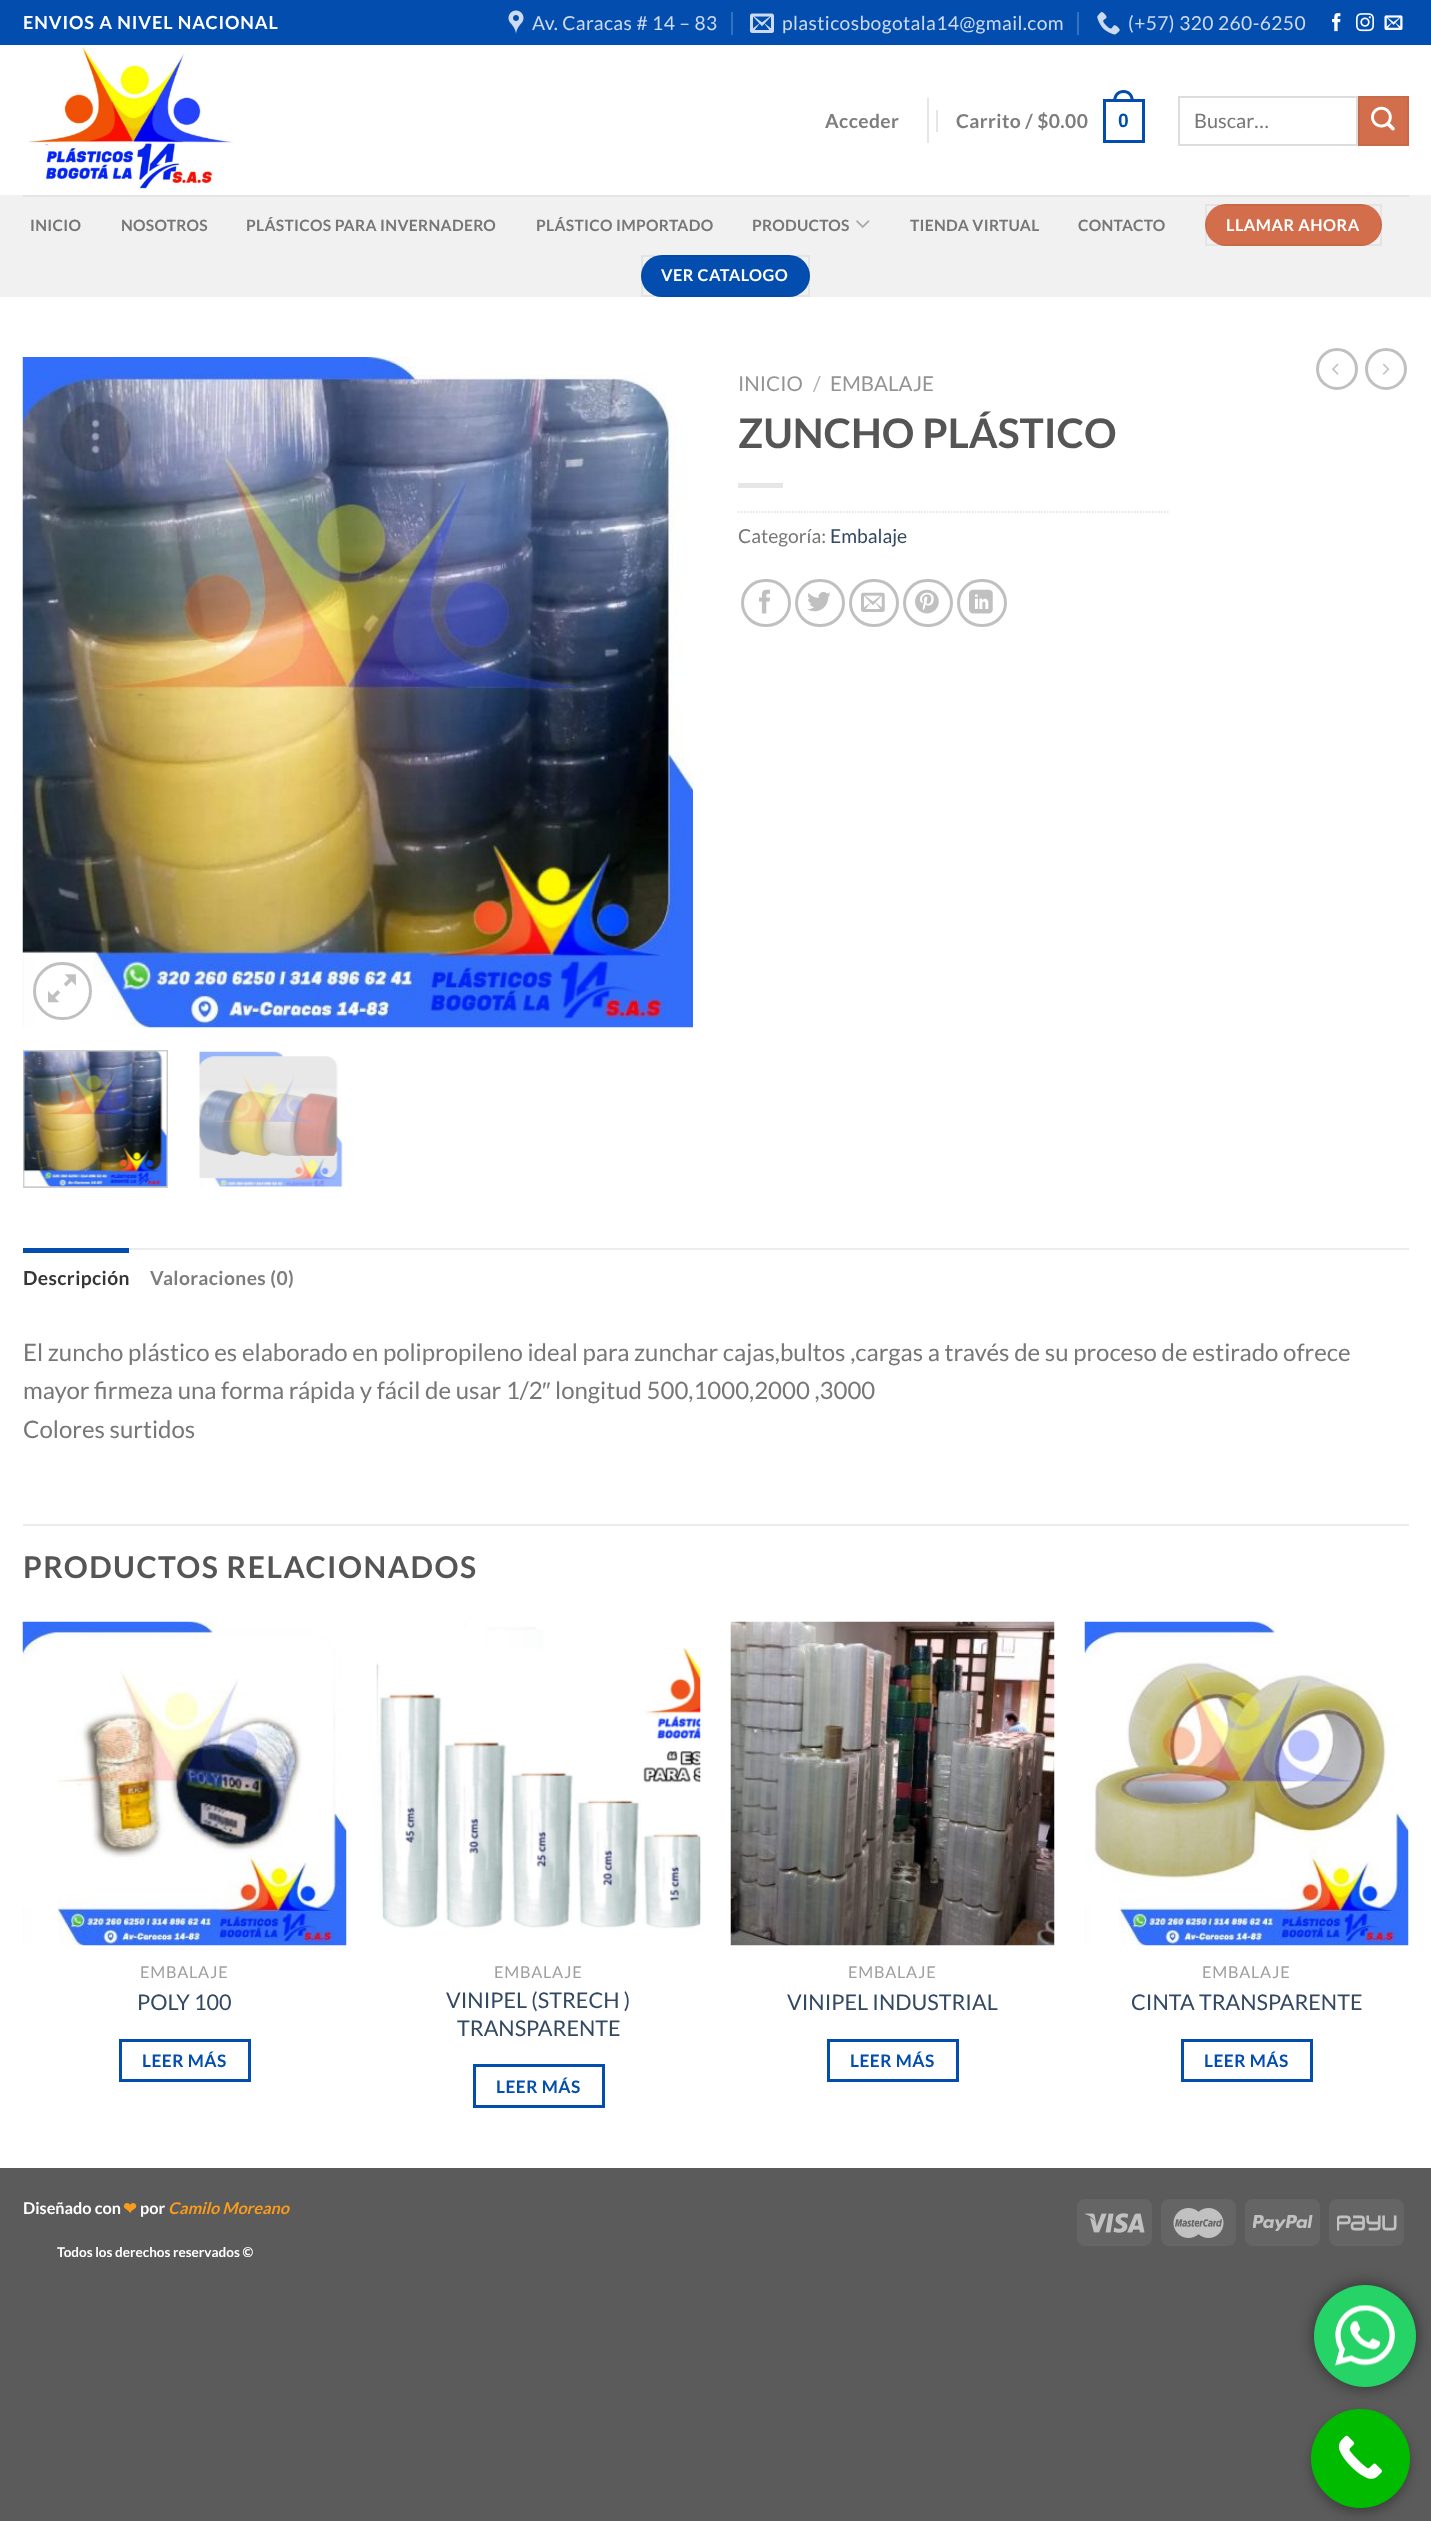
<!DOCTYPE html>
<meta charset="utf-8">
<style>body { margin: 0 } canvas { display: block }</style>
<canvas id="canvas" width="1431" height="2521"></canvas>
<script type="module">
  const canvas = document.getElementById("canvas");
  const g = canvas.getContext("2d");
  g.miterLimit = 4;
  g.fontKerning = "normal";
  function drawText(s, x, y, [font, color]) {
    g.font = font;
    g.fillStyle = color;
    g.fillText(s, x, y);
  }
  function fillBox(x, y, w, h, color) {
    g.fillStyle = color;
    g.fillRect(x, y, w, h);
  }
  function fillRounded(x, y, w, h, r, color) {
    g.fillStyle = color;
    g.beginPath();
    g.roundRect(x, y, w, h, r);
    g.fill();
  }
  async function drawPicture(src, x, y, w, h) {
    const img = new Image();
    img.src = src;
    await img.decode();
    g.drawImage(img, x, y, w, h);
  }

  const s1 = ["bold 18px Lato", "#FFFFFF"];
  const s2 = ["19.25px Lato", "#CDDBEF"];
  const s3 = ["bold 19.25px Lato", "#7D7D7D"];
  const s4 = ["bold 19.25px Liberation Sans", "#034DAE"];
  const s5 = ["20px Lato", "#777777"];
  const s6 = ["bold 15.6px Lato", "#777777"];
  const s7 = ["bold 16.25px Lato", "#FFFFFF"];
  const s8 = ["20.5px Lato", "#949494"];
  const s9 = ["20.5px Lato", "#B2B2B2"];
  const s10 = ["bold 40.75px Lato", "#555555"];
  const s11 = ["19.25px Lato", "#777777"];
  const s12 = ["19.25px Lato", "#334862"];
  const s13 = ["bold 19.25px Lato", "#363636"];
  const s14 = ["24px Lato", "#777777"];
  const s15 = ["24px Liberation Sans", "#777777"];
  const s16 = ["bold 30px Lato", "#555555"];
  const s17 = ["16.25px Lato", "#A0A0A0"];
  const s18 = ["21.6px Lato", "#334862"];
  const s19 = ["bold 17.25px Lato", "#034DAE"];
  const s20 = ["bold 16.25px DejaVu Sans", "#F99B1C"];
  const s21 = ["italic bold 16.25px Lato", "#F99B1C"];
  const s22 = ["bold 13.5px Lato", "#FFFFFF"];

  fillBox(0, 0, 1431, 2521, "#5B5B5B");
  fillBox(0, 45, 1431, 2123, "#FFFFFF");
  fillBox(0, 0, 1431, 45, "#034DAE");
  g.letterSpacing = "0.9px";
  drawText("ENVIOS A NIVEL NACIONAL", 23, 29, s1);
  await drawPicture("pic1.png", 508, 10, 16, 24);
  g.letterSpacing = "0.4px";
  drawText("Av. Caracas # 14 – 83", 532, 30, s2);
  fillBox(731, 12, 2, 23, "#3571BE");
  await drawPicture("pic2.png", 750, 13, 24, 20);
  drawText("plasticosbogotala14@gmail.com", 782, 30, s2);
  fillBox(1077, 12, 2, 23, "#3571BE");
  await drawPicture("pic3.png", 1097, 12, 23, 23);
  drawText("(+57) 320 260-6250", 1128, 30, s2);
  await drawPicture("pic4.png", 1332, 13, 9, 19);
  await drawPicture("pic5.png", 1356, 13, 18, 19);
  await drawPicture("pic6.png", 1384, 15, 19, 15);
  await drawPicture("pic7.png", 28, 45, 205, 147);
  drawText("Acceder", 825, 128, s3);
  fillBox(927, 98, 2, 45, "#E6E6E6");
  fillBox(936, 110, 2, 22, "#E6E6E6");
  drawText("Carrito / $0.00", 956, 128, s3);
  g.strokeStyle = "#034DAE";
  g.lineWidth = 3;
  g.strokeRect(1104.5, 100.5, 39, 41);
  g.fillStyle = "#034DAE";
  g.beginPath();
  g.moveTo(1123.5, 90);
  g.bezierCurveTo(1130.5, 90, 1134, 95.5, 1134, 102);
  g.lineTo(1113, 102);
  g.bezierCurveTo(1113, 95.5, 1116.5, 90, 1123.5, 90);
  g.closePath();
  g.moveTo(1123.5, 93);
  g.bezierCurveTo(1129, 93, 1131, 97.5, 1131, 102);
  g.lineTo(1116, 102);
  g.bezierCurveTo(1116, 97.5, 1118, 93, 1123.5, 93);
  g.closePath();
  g.fill("evenodd");
  drawText("0", 1118, 127, s4);
  g.strokeStyle = "#DDDDDD";
  g.lineWidth = 2;
  g.strokeRect(1179, 97, 178, 48);
  g.letterSpacing = "0px";
  drawText("Buscar…", 1194, 128, s5);
  g.fillStyle = "#D26E4B";
  g.beginPath();
  g.rect(1359, 97, 49, 48);
  g.fill();
  g.strokeStyle = "#C86947";
  g.stroke();
  await drawPicture("pic8.png", 1371, 106, 24, 25);
  fillBox(0, 195, 1431, 102, "#F1F1F1");
  fillBox(23, 195, 1386, 2, "#E5E5E5");
  g.letterSpacing = "0.3px";
  drawText("INICIO", 30, 231, s6);
  drawText("NOSOTROS", 121, 231, s6);
  drawText("PLÁSTICOS PARA INVERNADERO", 246, 231, s6);
  drawText("PLÁSTICO IMPORTADO", 536, 231, s6);
  drawText("PRODUCTOS", 752, 231, s6);
  await drawPicture("pic9.png", 856, 220, 14, 8);
  drawText("TIENDA VIRTUAL", 910, 231, s6);
  drawText("CONTACTO", 1078, 231, s6);
  fillRounded(1205, 204, 177, 42, 21, "#D26E4B");
  g.strokeStyle = "rgba(0, 0, 0, 0.05)";
  g.strokeRect(1206, 205, 175, 40);
  g.letterSpacing = "0.5px";
  drawText("LLAMAR AHORA", 1226, 231, s7);
  fillRounded(641, 255, 169, 42, 21, "#034DAE");
  g.strokeRect(642, 256, 167, 40);
  drawText("VER CATALOGO", 661, 281, s7);
  await drawPicture("pic10.png", 22, 357, 671, 671);
  g.beginPath();
  g.roundRect(34.5, 963.5, 56, 55, 27.5);
  g.strokeStyle = "#C0C0C0";
  g.lineWidth = 3;
  g.stroke();
  await drawPicture("pic11.png", 48, 974, 28, 29);
  g.strokeStyle = "#CCCCCC";
  g.lineWidth = 2;
  g.strokeRect(24, 1051, 143, 136);
  await drawPicture("pic12.png", 23, 1051, 144, 136);
  await drawPicture("pic13.png", 199, 1051, 144, 136);
  g.letterSpacing = "0px";
  drawText("INICIO", 738, 391, s8);
  drawText("/", 813, 391, s9);
  drawText("EMBALAJE", 830, 391, s8);
  drawText("ZUNCHO PLÁSTICO", 738, 448, s10);
  fillBox(738, 483, 45, 5, "#E6E6E6");
  g.beginPath();
  g.moveTo(738, 512);
  g.lineTo(1170, 512);
  g.strokeStyle = "#DDDDDD";
  g.lineWidth = 1.5;
  g.setLineDash([1.5, 1.5]);
  g.stroke();
  drawText("Categoría:", 738, 543, s11);
  drawText("Embalaje", 830, 543, s12);
  g.beginPath();
  g.roundRect(742.5, 580.5, 47, 45, 22.5);
  g.strokeStyle = "#C0C0C0";
  g.lineWidth = 3;
  g.setLineDash([]);
  g.stroke();
  await drawPicture("pic14.png", 759, 589, 11, 25);
  g.beginPath();
  g.roundRect(796.5, 580.5, 47, 45, 22.5);
  g.stroke();
  await drawPicture("pic15.png", 807, 592, 24, 20);
  g.beginPath();
  g.roundRect(850.5, 580.5, 47, 45, 22.5);
  g.stroke();
  await drawPicture("pic16.png", 861, 592, 24, 20);
  g.beginPath();
  g.roundRect(904.5, 580.5, 47, 45, 22.5);
  g.stroke();
  await drawPicture("pic17.png", 915, 589, 24, 25);
  g.beginPath();
  g.roundRect(958.5, 580.5, 47, 45, 22.5);
  g.stroke();
  await drawPicture("pic18.png", 969, 589, 24, 25);
  g.beginPath();
  g.arc(1337, 369, 19.5, 0, Math.PI * 2);
  g.stroke();
  await drawPicture("pic19.png", 1332, 363, 7, 12);
  g.beginPath();
  g.arc(1386, 369, 19.5, 0, Math.PI * 2);
  g.stroke();
  await drawPicture("pic20.png", 1382, 363, 8, 12);
  fillBox(129, 1248, 1280, 2, "#ECECEC");
  fillBox(23, 1248, 106, 5, "#034DAE");
  g.letterSpacing = "0.4px";
  drawText("Descripción", 23, 1285, s13);
  drawText("Valoraciones (0)", 150, 1285, s3);
  g.letterSpacing = "0px";
  drawText("El zuncho plástico es elaborado en polipropileno ideal para zunchar cajas,bultos ,cargas a través de su proceso de estirado ofrece", 23, 1361, s14);
  drawText("mayor firmeza una forma rápida y fácil de usar 1/2", 23, 1399, s14);
  drawText("″", 542, 1399, s15);
  drawText("longitud 500,1000,2000 ,3000", 555, 1399, s14);
  drawText("Colores surtidos", 23, 1438, s14);
  fillBox(23, 1524, 1386, 2, "#ECECEC");
  g.letterSpacing = "1.5px";
  drawText("PRODUCTOS RELACIONADOS", 23, 1578, s16);
  await drawPicture("pic21.png", 22, 1621, 325, 325);
  g.letterSpacing = "0.75px";
  drawText("EMBALAJE", 140, 1978, s17);
  g.letterSpacing = "0px";
  drawText("POLY 100", 137, 2010, s18);
  g.strokeStyle = "#034DAE";
  g.strokeRect(120.5, 2040.5, 129, 40);
  g.letterSpacing = "0.5px";
  drawText("LEER MÁS", 142, 2067, s19);
  await drawPicture("pic22.png", 376, 1622, 325, 307);
  g.letterSpacing = "0.75px";
  drawText("EMBALAJE", 494, 1978, s17);
  g.letterSpacing = "0px";
  drawText("VINIPEL (STRECH )", 446, 2008, s18);
  drawText("TRANSPARENTE", 457, 2036, s18);
  g.strokeRect(474.5, 2065.5, 129, 41);
  g.letterSpacing = "0.5px";
  drawText("LEER MÁS", 496, 2093, s19);
  await drawPicture("pic23.png", 730, 1621, 325, 325);
  g.letterSpacing = "0.75px";
  drawText("EMBALAJE", 848, 1978, s17);
  g.letterSpacing = "0px";
  drawText("VINIPEL INDUSTRIAL", 787, 2010, s18);
  g.strokeRect(828.5, 2040.5, 129, 40);
  g.letterSpacing = "0.5px";
  drawText("LEER MÁS", 850, 2067, s19);
  await drawPicture("pic24.png", 1084, 1621, 325, 325);
  g.letterSpacing = "0.75px";
  drawText("EMBALAJE", 1202, 1978, s17);
  g.letterSpacing = "0px";
  drawText("CINTA TRANSPARENTE", 1131, 2010, s18);
  g.strokeRect(1182.5, 2040.5, 129, 40);
  g.letterSpacing = "0.5px";
  drawText("LEER MÁS", 1204, 2067, s19);
  g.letterSpacing = "0px";
  drawText("Diseñado con", 23, 2214, s7);
  drawText("❤", 123, 2214, s20);
  drawText("por", 140, 2214, s7);
  drawText("Camilo Moreano", 168, 2214, s21);
  drawText("Todos los derechos reservados ©", 57, 2257, s22);
  fillRounded(1077, 2199, 75, 47, 8, "#656565");
  await drawPicture("pic25.png", 1085, 2213, 60, 20);
  fillRounded(1161, 2199, 75, 47, 8, "#656565");
  await drawPicture("pic26.png", 1173, 2208, 51, 30);
  fillRounded(1245, 2199, 75, 47, 8, "#656565");
  await drawPicture("pic27.png", 1253, 2215, 60, 16);
  fillRounded(1329, 2199, 75, 47, 8, "#656565");
  await drawPicture("pic28.png", 1337, 2215, 60, 16);
  g.fillStyle = "rgba(0, 0, 0, 0.5)";
  g.filter = "blur(8px)";
  g.beginPath();
  g.roundRect(1314, 2285, 102, 102, 51);
  g.fill();
  g.filter = "none";
  g.fillStyle = "#25D366";
  g.beginPath();
  g.arc(1365, 2336, 51, 0, Math.PI * 2);
  g.fill();
  await drawPicture("pic29.png", 1335, 2305, 60, 61);
  g.fillStyle = "rgba(0, 0, 0, 0.3)";
  g.filter = "blur(5.5px)";
  g.beginPath();
  g.roundRect(1311, 2414, 99, 99, 49.5);
  g.fill();
  g.filter = "none";
  g.fillStyle = "#00BB00";
  g.beginPath();
  g.arc(1360.5, 2458.5, 49.5, 0, Math.PI * 2);
  g.fill();
  await drawPicture("pic30.png", 1338, 2435, 44, 44);
</script>
